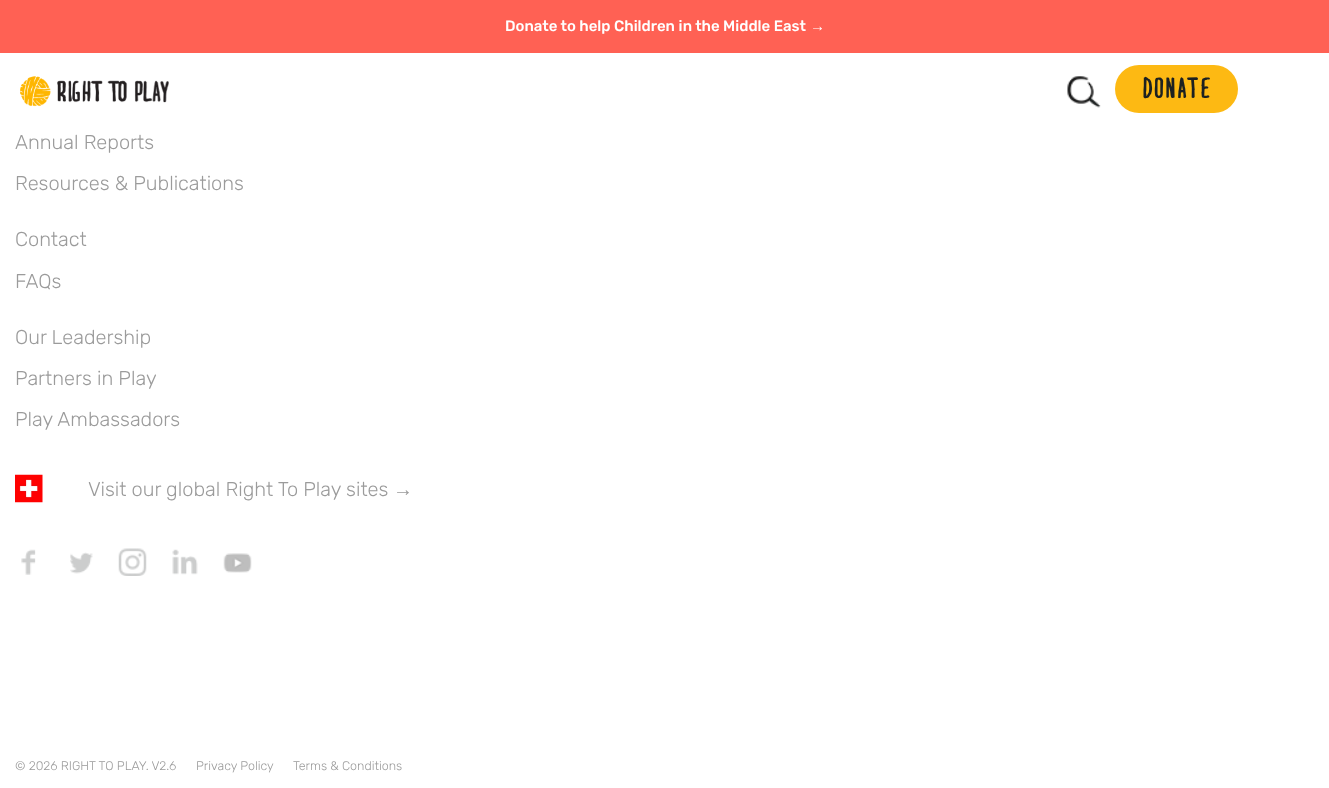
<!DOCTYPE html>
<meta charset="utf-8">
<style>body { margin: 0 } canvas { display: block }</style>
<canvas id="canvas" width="1329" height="788"></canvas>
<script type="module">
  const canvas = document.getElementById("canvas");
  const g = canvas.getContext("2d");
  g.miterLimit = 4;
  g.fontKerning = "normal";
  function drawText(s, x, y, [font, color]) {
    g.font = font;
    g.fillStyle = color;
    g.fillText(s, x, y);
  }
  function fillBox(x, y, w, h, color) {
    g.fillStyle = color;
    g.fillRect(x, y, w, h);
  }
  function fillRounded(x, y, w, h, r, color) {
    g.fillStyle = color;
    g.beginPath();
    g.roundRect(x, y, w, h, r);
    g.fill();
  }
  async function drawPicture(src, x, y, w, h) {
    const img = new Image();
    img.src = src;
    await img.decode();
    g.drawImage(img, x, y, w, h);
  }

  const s1 = ["300 15px 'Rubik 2'", "#FFFFFF"];
  const s2 = ["15px Liberation Sans", "#FFFFFF"];
  const s3 = ["bold 27.5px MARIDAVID", "#1D2121"];
  const s4 = ["300 20px Rubik", "#9B9B9B"];
  const s5 = ["20px Liberation Sans", "#9B9B9B"];
  const s6 = ["300 12.5px Rubik", "#9B9B9B"];

  fillBox(0, 0, 1329, 788, "#FFFFFF");
  fillBox(0, 0, 1329, 53, "#FF6154");
  drawText("Donate to help Children in the Middle East", 505, 31, s1);
  drawText("→", 810, 31, s2);
  await drawPicture("pic1.png", 20, 76, 149, 31);
  await drawPicture("pic2.png", 1067, 76, 34, 32);
  fillRounded(1115, 65, 123, 48, 24, "#FDB913");
  g.letterSpacing = "2.5px";
  drawText("DONATE", 1143, 98, s3);
  g.letterSpacing = "0px";
  drawText("Annual Reports", 15, 149, s4);
  drawText("Resources & Publications", 15, 190, s4);
  drawText("Contact", 15, 246, s4);
  drawText("FAQs", 15, 288, s4);
  drawText("Our Leadership", 15, 344, s4);
  drawText("Partners in Play", 15, 385, s4);
  drawText("Play Ambassadors", 15, 426, s4);
  await drawPicture("pic3.png", 15, 474, 28, 29);
  drawText("Visit our global Right To Play sites", 88, 496, s4);
  drawText("→", 393, 496, s5);
  await drawPicture("pic4.png", 21, 549, 15, 26);
  await drawPicture("pic5.png", 70, 552, 23, 22);
  await drawPicture("pic6.png", 118, 548, 29, 28);
  await drawPicture("pic7.png", 172, 549, 26, 26);
  await drawPicture("pic8.png", 223, 553, 29, 20);
  drawText("© 2026 RIGHT TO PLAY. V2.6", 15, 770, s6);
  drawText("Privacy Policy", 196, 770, s6);
  drawText("Terms & Conditions", 293, 770, s6);
</script>
